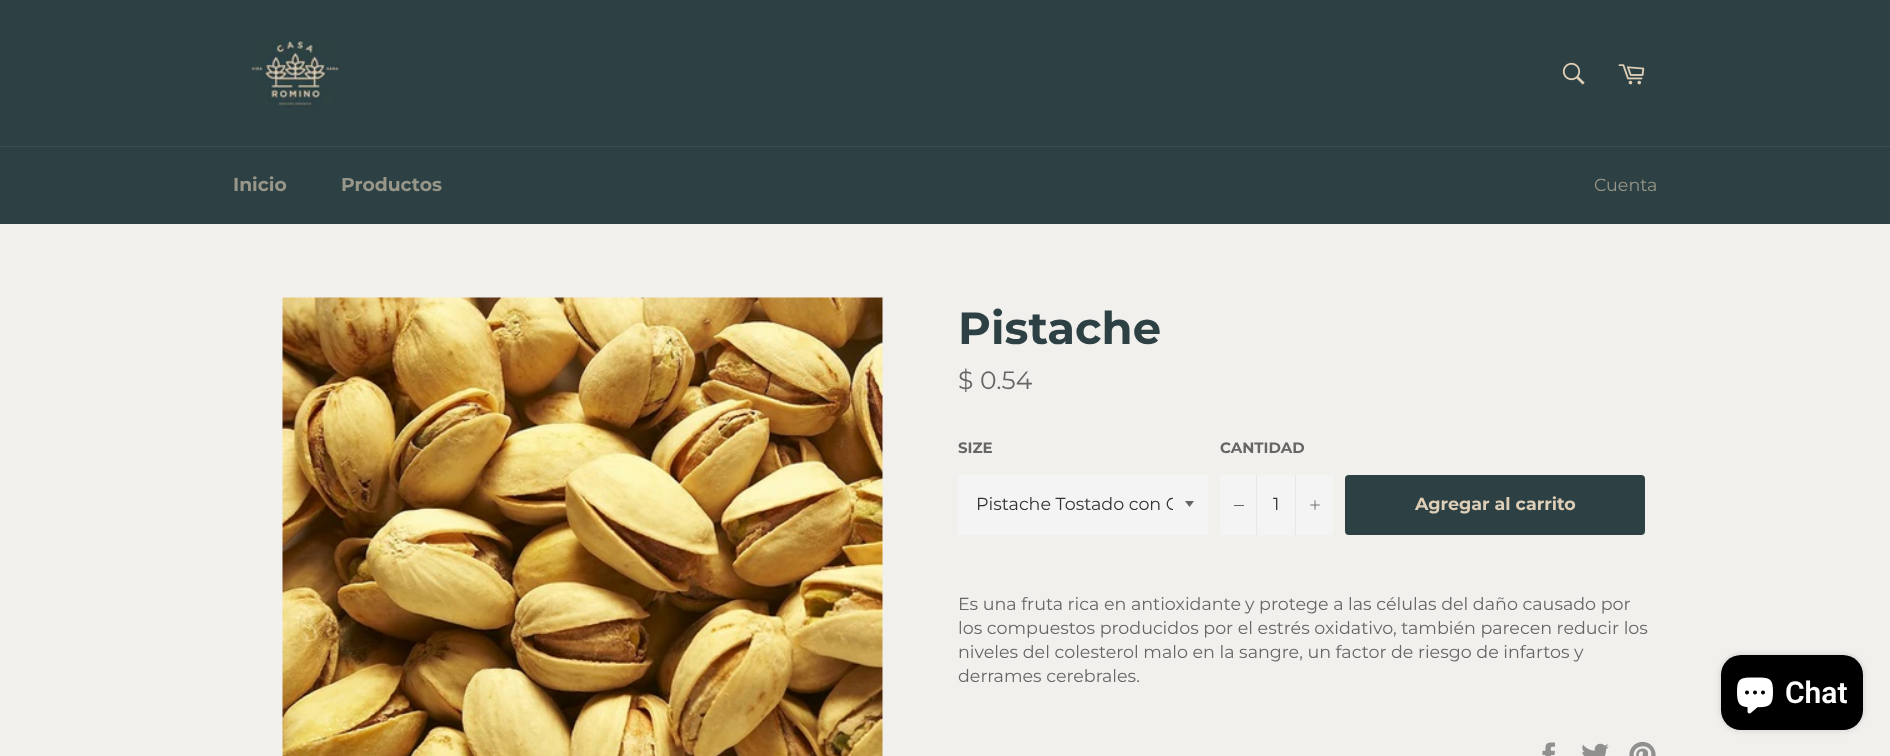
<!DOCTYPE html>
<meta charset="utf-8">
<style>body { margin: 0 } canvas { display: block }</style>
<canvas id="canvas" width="1890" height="756"></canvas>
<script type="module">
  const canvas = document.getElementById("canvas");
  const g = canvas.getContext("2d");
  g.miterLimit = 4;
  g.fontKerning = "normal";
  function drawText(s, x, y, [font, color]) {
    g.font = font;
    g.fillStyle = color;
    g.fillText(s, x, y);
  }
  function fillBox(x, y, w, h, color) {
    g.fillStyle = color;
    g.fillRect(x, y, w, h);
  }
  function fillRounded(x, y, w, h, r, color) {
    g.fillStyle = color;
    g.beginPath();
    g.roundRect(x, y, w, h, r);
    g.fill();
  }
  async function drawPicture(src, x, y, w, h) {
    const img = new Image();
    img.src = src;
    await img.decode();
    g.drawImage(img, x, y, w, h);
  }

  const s1 = ["bold 18.75px Montserrat", "#979688"];
  const s2 = ["17.5px Montserrat", "#979688"];
  const s3 = ["bold 45px Montserrat", "#2D4144"];
  const s4 = ["25px Montserrat", "#666666"];
  const s5 = ["bold 15px Montserrat", "#666666"];
  const s6 = ["17.5px Montserrat", "#333333"];
  const s7 = ["bold 17.5px Montserrat", "#DECEB6"];
  const s8 = ["17.5px Montserrat", "#666666"];
  const s9 = ["600 30px Roboto", "#FFFFFF"];

  fillBox(0, 0, 1890, 756, "#F2F0ED");
  fillBox(0, 0, 1890, 146, "#2D4144");
  await drawPicture("pic1.png", 251, 40, 89, 67);
  await drawPicture("pic2.png", 1562, 62, 23, 23);
  await drawPicture("pic3.png", 1618, 64, 27, 21);
  fillBox(0, 147, 1890, 77, "#2D4144");
  fillBox(0, 146, 1890, 1, "#375053");
  drawText("Inicio", 233, 191, s1);
  drawText("Productos", 341, 191, s1);
  drawText("Cuenta", 1594, 191, s2);
  await drawPicture("pic4.png", 282, 297, 601, 459);
  drawText("Pistache", 958, 344, s3);
  drawText("$ 0.54", 958, 389, s4);
  drawText("SIZE", 958, 453, s5);
  fillBox(958, 475, 250, 60, "#F4F4F4");
  g.fillStyle = "#666666";
  g.beginPath();
  g.moveTo(1185, 501);
  g.lineTo(1189.5, 507);
  g.lineTo(1194, 501);
  g.closePath();
  g.fill();
  g.save();
  g.beginPath();
  g.rect(976, 493, 197, 23);
  g.clip();
  drawText("Pistache Tostado con C", 976, 510, s6);
  g.restore();
  drawText("CANTIDAD", 1220, 453, s5);
  fillBox(1220, 475, 113, 60, "#F4F4F4");
  fillBox(1256, 475, 1, 60, "#E7E7E7");
  fillBox(1234, 505, 10, 1, "#666666");
  drawText("1", 1273, 510, s6);
  fillBox(1295, 475, 1, 60, "#E7E7E7");
  await drawPicture("pic5.png", 1310, 500, 10, 10);
  fillRounded(1345, 475, 300, 60, 4, "#2D4144");
  drawText("Agregar al carrito", 1415, 510, s7);
  drawText("Es una fruta rica en antioxidante", 958, 610, s8);
  drawText("y protege a las células del daño causado por", 1245, 610, s8);
  drawText("los compuestos producidos por el estrés oxidativo, también parecen reducir los", 958, 634, s8);
  drawText("niveles del colesterol malo en la sangre, un factor de riesgo de infartos y", 958, 658, s8);
  drawText("derrames cerebrales.", 958, 682, s8);
  await drawPicture("pic6.png", 1542, 742, 13, 14);
  await drawPicture("pic7.png", 1582, 743, 27, 13);
  await drawPicture("pic8.png", 1629, 741, 27, 15);
  g.fillStyle = "rgba(0, 0, 0, 0.15)";
  g.filter = "blur(3px)";
  g.beginPath();
  g.roundRect(1721, 655, 142, 75, 20);
  g.fill();
  g.filter = "none";
  fillRounded(1721, 655, 142, 75, 20, "#000000");
  await drawPicture("pic9.png", 1737, 677, 36, 37);
  drawText("Chat", 1785, 703, s9);
</script>
